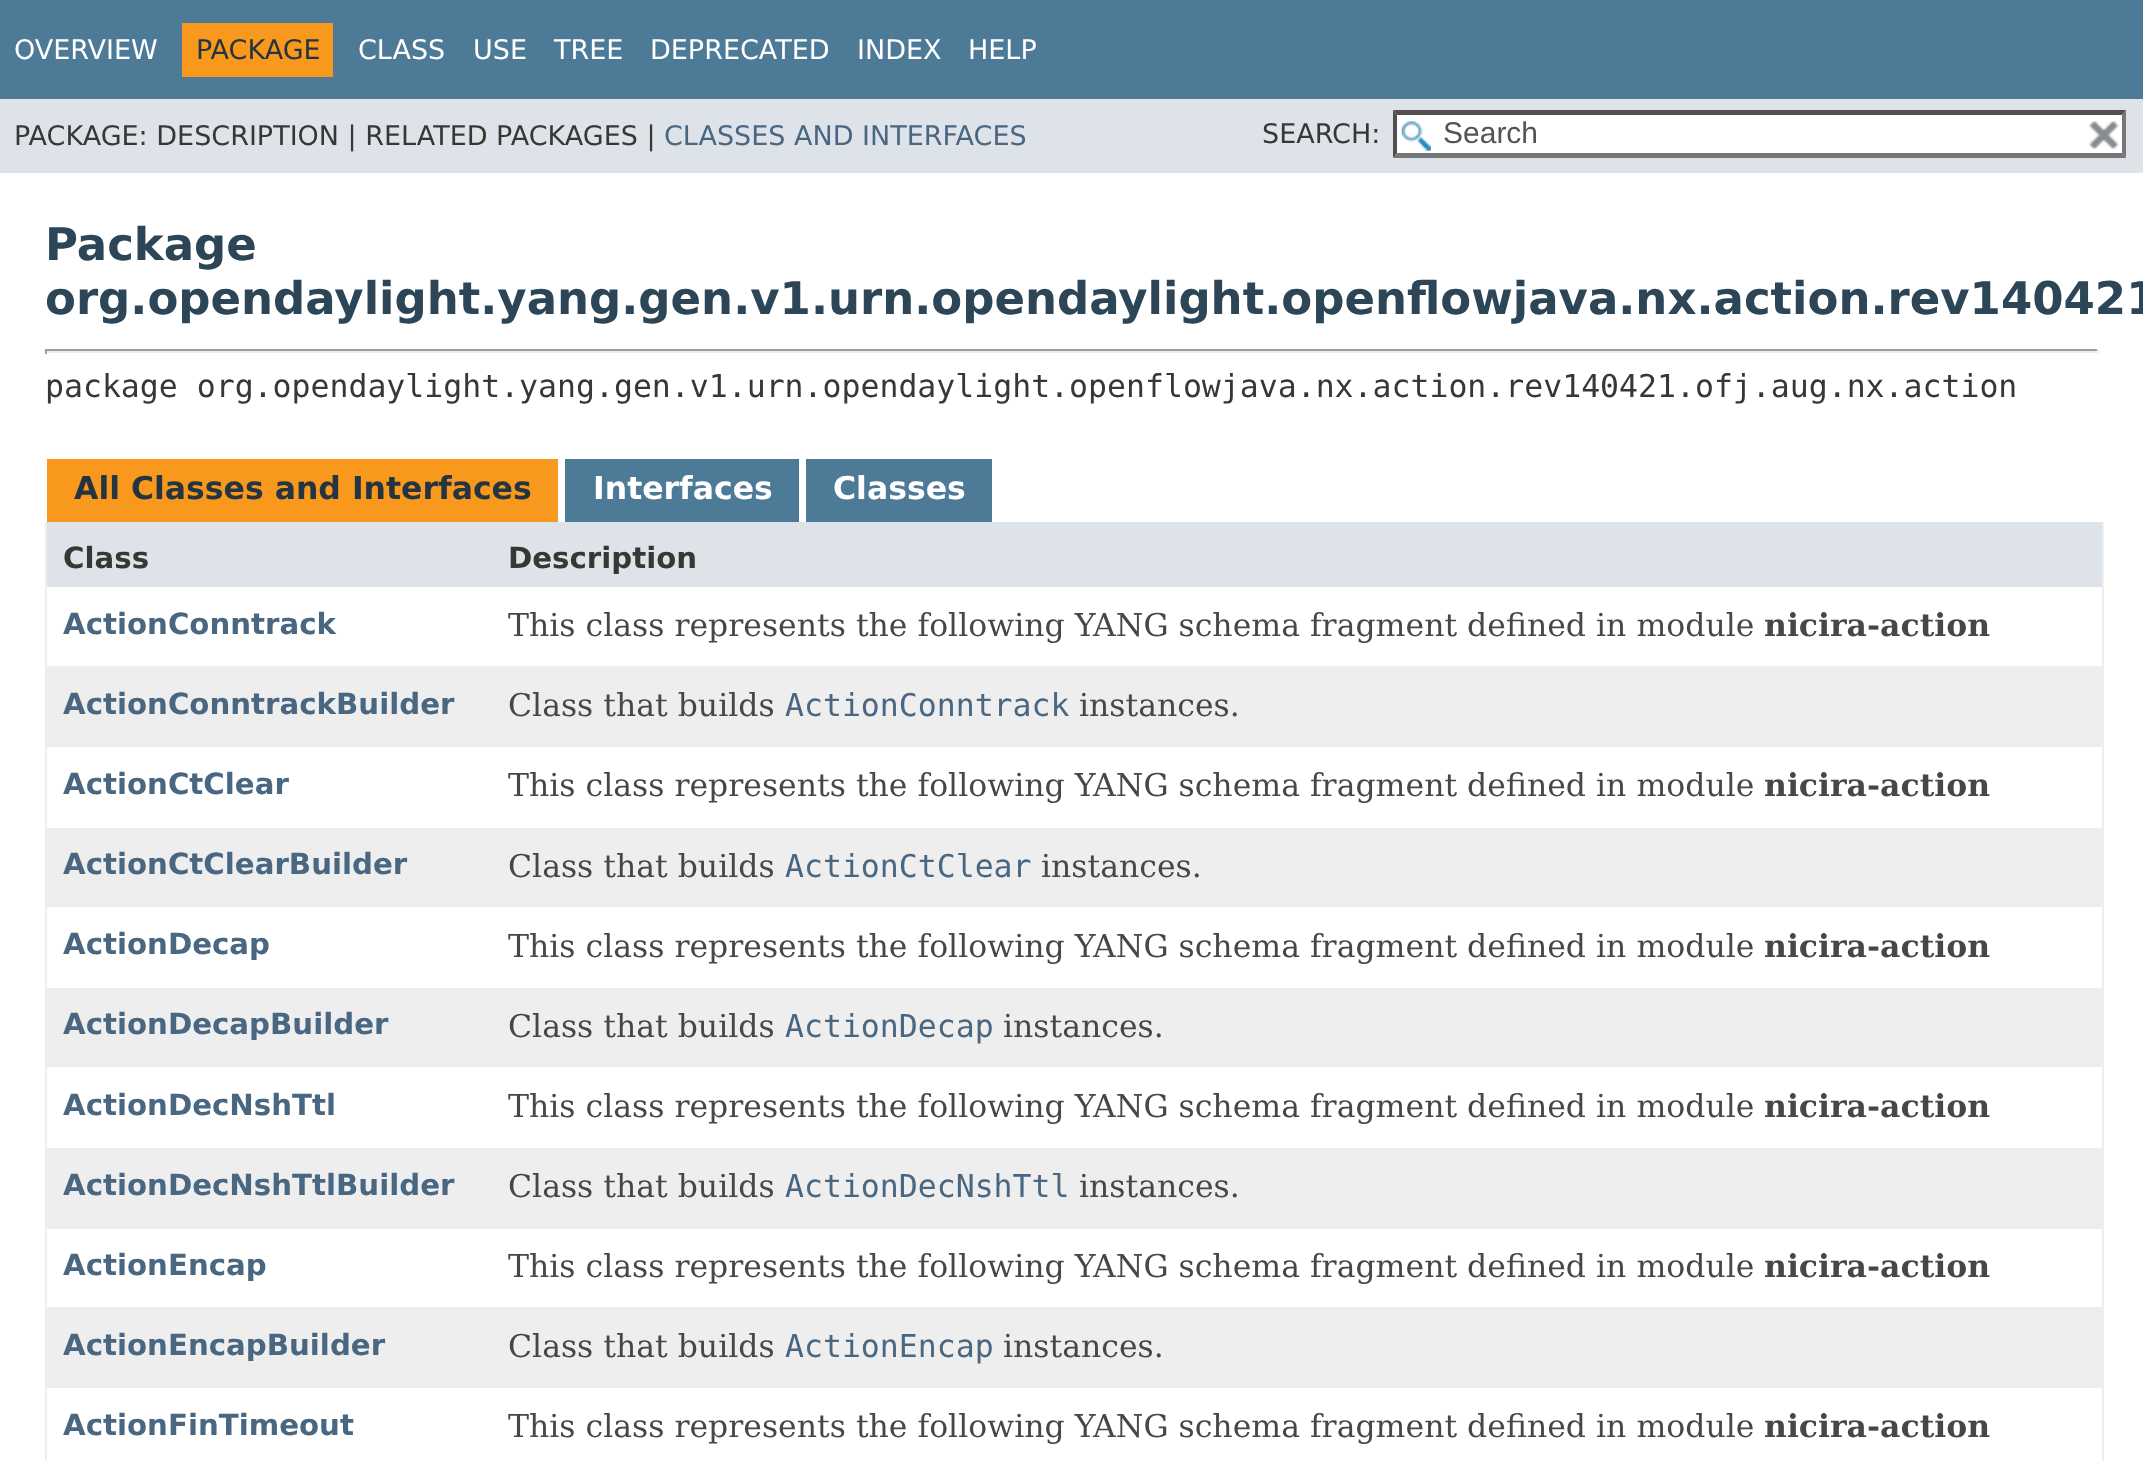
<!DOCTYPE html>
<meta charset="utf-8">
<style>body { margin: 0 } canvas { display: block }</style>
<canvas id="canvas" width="2143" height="1461"></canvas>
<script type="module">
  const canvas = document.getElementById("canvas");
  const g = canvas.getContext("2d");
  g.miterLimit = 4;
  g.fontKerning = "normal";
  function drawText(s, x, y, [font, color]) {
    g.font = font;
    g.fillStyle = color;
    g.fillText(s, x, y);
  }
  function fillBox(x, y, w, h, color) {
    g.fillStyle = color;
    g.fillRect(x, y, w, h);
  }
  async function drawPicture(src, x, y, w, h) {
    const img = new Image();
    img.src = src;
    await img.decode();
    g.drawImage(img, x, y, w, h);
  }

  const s1 = ["27px DejaVu Sans", "#FFFFFF"];
  const s2 = ["27px DejaVu Sans", "#253441"];
  const s3 = ["27px DejaVu Sans", "#353833"];
  const s4 = ["27px DejaVu Sans", "#4A6782"];
  const s5 = ["30px Liberation Sans", "#545454"];
  const s6 = ["bold 45px DejaVu Sans", "#2C4557"];
  const s7 = ["31.5px DejaVu Sans Mono", "#353833"];
  const s8 = ["bold 31.5px DejaVu Sans", "#253441"];
  const s9 = ["bold 31.5px DejaVu Sans", "#FFFFFF"];
  const s10 = ["bold 29.25px DejaVu Sans", "#353833"];
  const s11 = ["bold 29.25px DejaVu Sans", "#4A6782"];
  const s12 = ["31.5px DejaVu Serif", "#474747"];
  const s13 = ["bold 31.5px DejaVu Serif", "#474747"];
  const s14 = ["31.5px DejaVu Sans Mono", "#4A6782"];

  fillBox(0, 0, 2143, 1461, "#FFFFFF");
  fillBox(0, 0, 2143, 99, "#4D7A97");
  drawText("OVERVIEW", 14, 59, s1);
  fillBox(182, 23, 151, 54, "#F8981D");
  drawText("PACKAGE", 196, 59, s2);
  drawText("CLASS", 358, 59, s1);
  drawText("USE", 473, 59, s1);
  drawText("TREE", 554, 59, s1);
  drawText("DEPRECATED", 650, 59, s1);
  drawText("INDEX", 857, 59, s1);
  drawText("HELP", 968, 59, s1);
  fillBox(0, 99, 2143, 74, "#DEE3E9");
  drawText("PACKAGE: DESCRIPTION | RELATED PACKAGES |", 14, 145, s3);
  drawText("CLASSES AND INTERFACES", 664, 145, s4);
  drawText("SEARCH:", 1262, 143, s3);
  fillBox(1393, 110, 733, 48, "#FFFFFF");
  await drawPicture("pic1.png", 1401, 121, 30, 30);
  g.fillStyle = "#4F4F4F";
  g.beginPath();
  g.moveTo(1393, 110);
  g.lineTo(2126, 110);
  g.lineTo(2122, 115);
  g.lineTo(1397, 115);
  g.closePath();
  g.fill();
  g.fillStyle = "#767676";
  g.beginPath();
  g.moveTo(2126, 110);
  g.lineTo(2126, 158);
  g.lineTo(2122, 153);
  g.lineTo(2122, 115);
  g.closePath();
  g.fill();
  g.beginPath();
  g.moveTo(2126, 158);
  g.lineTo(1393, 158);
  g.lineTo(1397, 153);
  g.lineTo(2122, 153);
  g.closePath();
  g.fill();
  g.fillStyle = "#4F4F4F";
  g.beginPath();
  g.moveTo(1393, 158);
  g.lineTo(1393, 110);
  g.lineTo(1397, 115);
  g.lineTo(1397, 153);
  g.closePath();
  g.fill();
  drawText("Search", 1443, 143, s5);
  await drawPicture("pic2.png", 2088, 121, 31, 28);
  drawText("Package", 45, 260, s6);
  drawText("org.opendaylight.yang.gen.v1.urn.opendaylight.openflowjava.nx.action.rev140421", 45, 314, s6);
  fillBox(45, 349, 2054, 2, "#9F9F9F");
  fillBox(2097, 349, 2, 5, "#EEEEEE");
  fillBox(45, 351, 2054, 2, "#EEEEEE");
  fillBox(45, 349, 2, 5, "#9F9F9F");
  drawText("package org.opendaylight.yang.gen.v1.urn.opendaylight.openflowjava.nx.action.rev140421.ofj.aug.nx.action", 45, 397, s7);
  fillBox(47, 459, 511, 63, "#F8981D");
  drawText("All Classes and Interfaces", 74, 499, s8);
  fillBox(565, 459, 234, 63, "#4D7A97");
  drawText("Interfaces", 593, 499, s9);
  fillBox(806, 459, 186, 63, "#4D7A97");
  drawText("Classes", 833, 499, s9);
  fillBox(2102, 522, 2, 939, "#EEEEEE");
  fillBox(45, 522, 2, 939, "#EEEEEE");
  fillBox(47, 522, 2055, 65, "#DEE3E9");
  drawText("Class", 63, 568, s10);
  drawText("Description", 508, 568, s10);
  drawText("ActionConntrack", 63, 634, s11);
  drawText("This class represents the following YANG schema fragment defined in module", 508, 636, s12);
  drawText("nicira-action", 1764, 636, s13);
  fillBox(47, 666, 2055, 81, "#EEEEEF");
  drawText("ActionConntrackBuilder", 63, 714, s11);
  drawText("Class that builds", 508, 716, s12);
  drawText("ActionConntrack", 785, 716, s14);
  drawText("instances.", 1079, 716, s12);
  drawText("ActionCtClear", 63, 794, s11);
  drawText("This class represents the following YANG schema fragment defined in module", 508, 796, s12);
  drawText("nicira-action", 1764, 796, s13);
  fillBox(47, 828, 2055, 79, "#EEEEEF");
  drawText("ActionCtClearBuilder", 63, 874, s11);
  drawText("Class that builds", 508, 877, s12);
  drawText("ActionCtClear", 785, 877, s14);
  drawText("instances.", 1041, 877, s12);
  drawText("ActionDecap", 63, 954, s11);
  drawText("This class represents the following YANG schema fragment defined in module", 508, 957, s12);
  drawText("nicira-action", 1764, 957, s13);
  fillBox(47, 988, 2055, 79, "#EEEEEF");
  drawText("ActionDecapBuilder", 63, 1034, s11);
  drawText("Class that builds", 508, 1037, s12);
  drawText("ActionDecap", 785, 1037, s14);
  drawText("instances.", 1003, 1037, s12);
  drawText("ActionDecNshTtl", 63, 1115, s11);
  drawText("This class represents the following YANG schema fragment defined in module", 508, 1117, s12);
  drawText("nicira-action", 1764, 1117, s13);
  fillBox(47, 1148, 2055, 81, "#EEEEEF");
  drawText("ActionDecNshTtlBuilder", 63, 1195, s11);
  drawText("Class that builds", 508, 1197, s12);
  drawText("ActionDecNshTtl", 785, 1197, s14);
  drawText("instances.", 1079, 1197, s12);
  drawText("ActionEncap", 63, 1275, s11);
  drawText("This class represents the following YANG schema fragment defined in module", 508, 1277, s12);
  drawText("nicira-action", 1764, 1277, s13);
  fillBox(47, 1307, 2055, 81, "#EEEEEF");
  drawText("ActionEncapBuilder", 63, 1355, s11);
  drawText("Class that builds", 508, 1357, s12);
  drawText("ActionEncap", 785, 1357, s14);
  drawText("instances.", 1003, 1357, s12);
  drawText("ActionFinTimeout", 63, 1435, s11);
  drawText("This class represents the following YANG schema fragment defined in module", 508, 1437, s12);
  drawText("nicira-action", 1764, 1437, s13);
</script>
